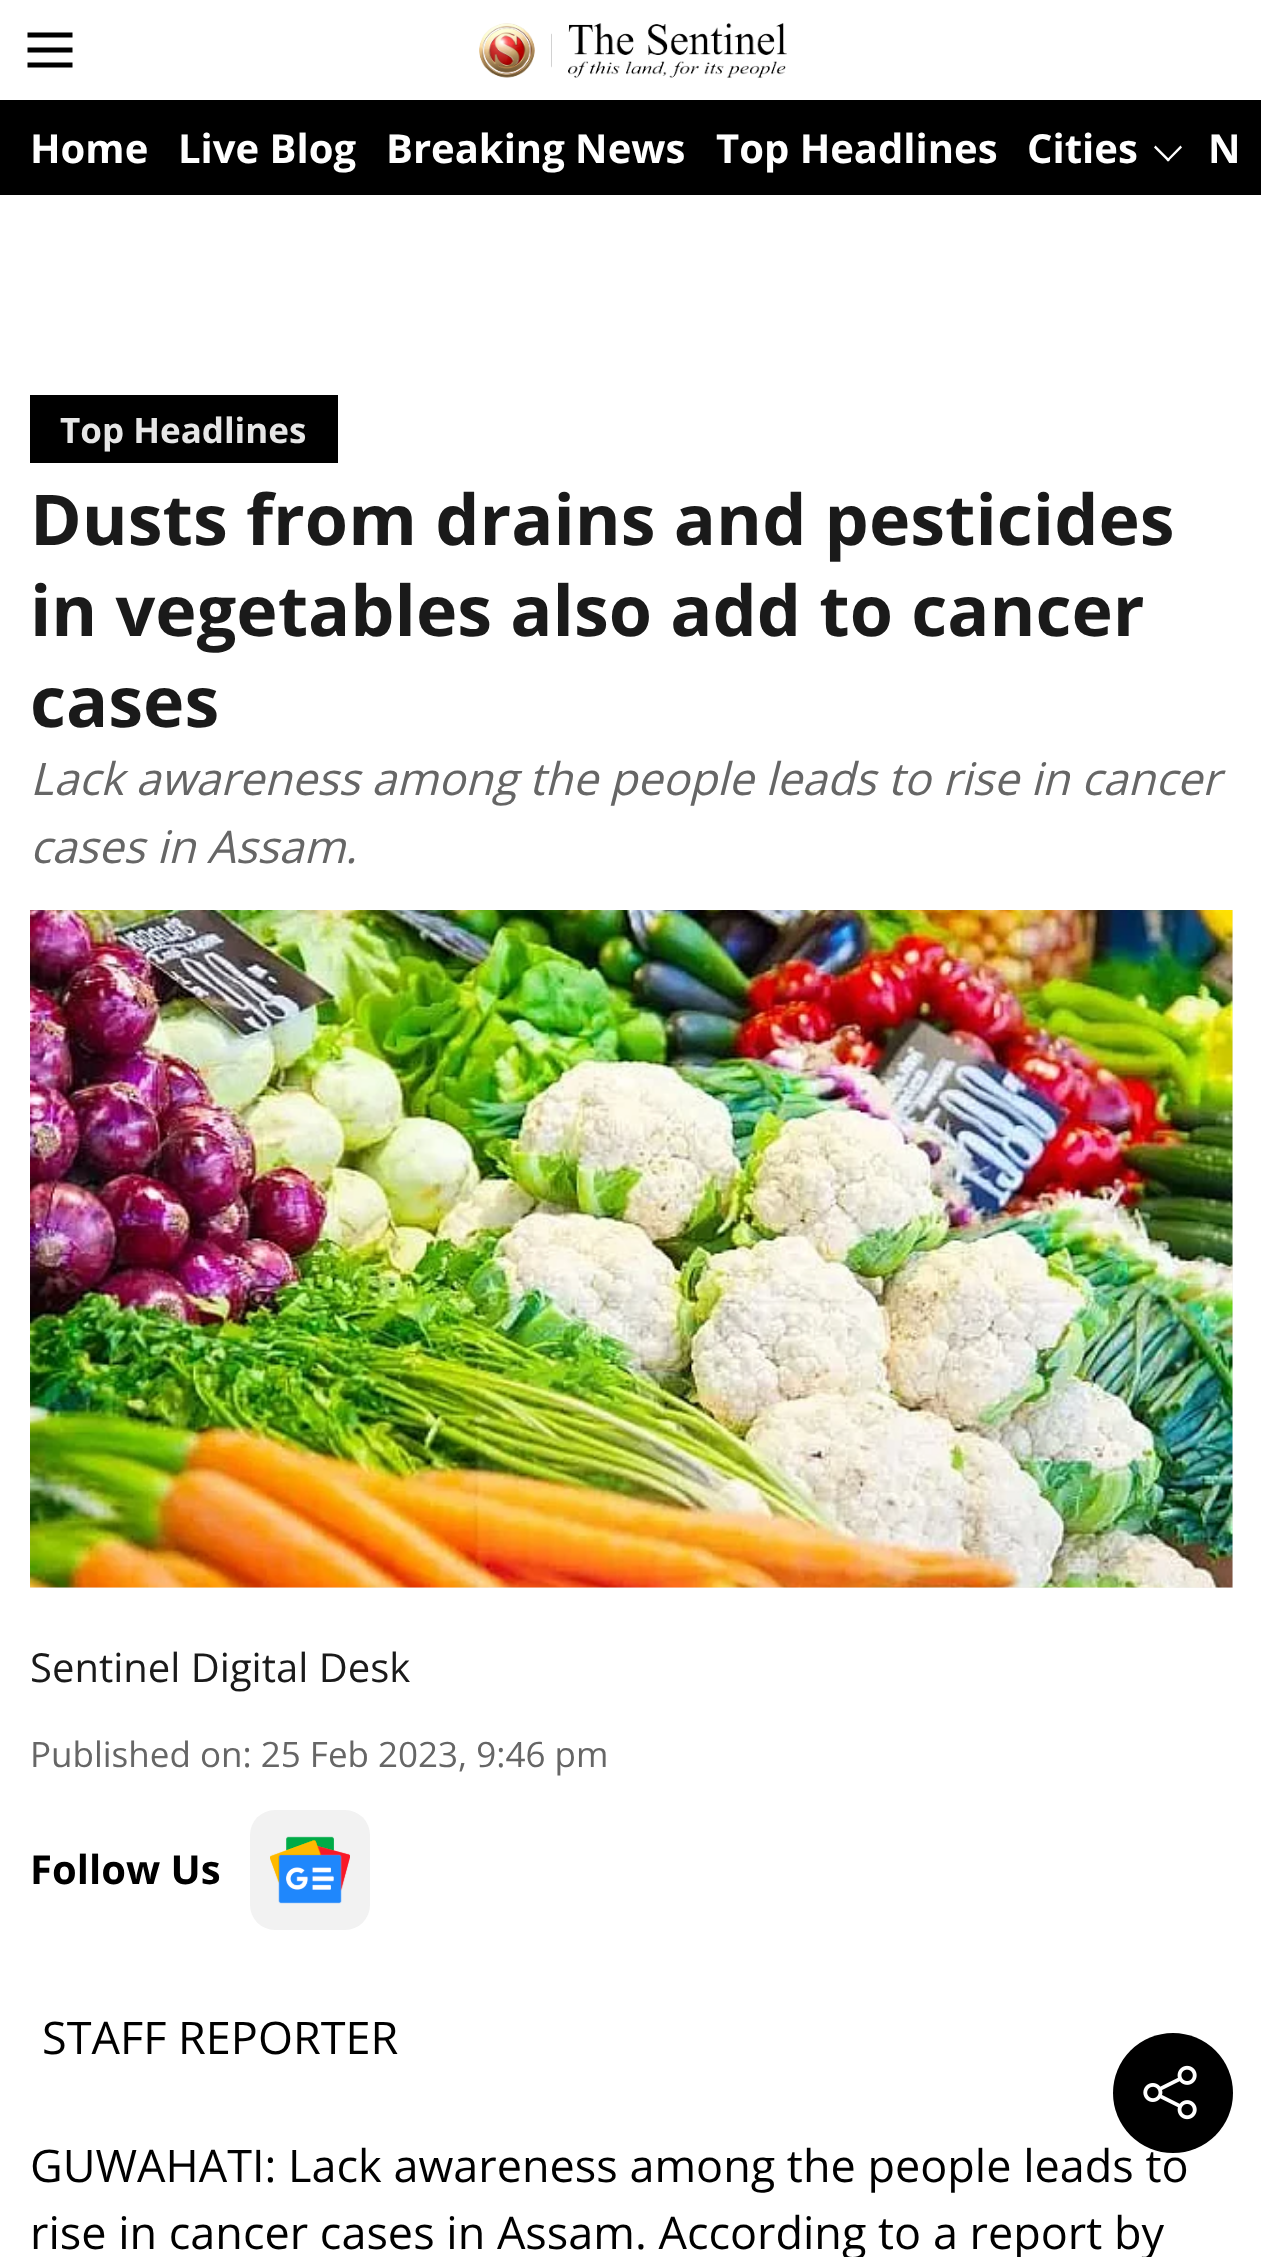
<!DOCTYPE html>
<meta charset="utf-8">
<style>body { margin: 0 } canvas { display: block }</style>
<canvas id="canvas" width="1261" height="2257"></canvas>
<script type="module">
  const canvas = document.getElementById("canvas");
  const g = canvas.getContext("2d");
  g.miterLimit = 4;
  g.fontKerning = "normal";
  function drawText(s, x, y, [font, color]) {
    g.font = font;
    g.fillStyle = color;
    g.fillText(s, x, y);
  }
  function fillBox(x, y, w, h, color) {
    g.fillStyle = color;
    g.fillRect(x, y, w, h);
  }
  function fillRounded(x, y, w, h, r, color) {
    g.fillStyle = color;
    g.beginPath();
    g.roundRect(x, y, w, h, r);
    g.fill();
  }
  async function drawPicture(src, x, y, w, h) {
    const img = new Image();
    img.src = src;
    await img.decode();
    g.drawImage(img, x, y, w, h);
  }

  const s1 = ["bold 40px Open Sans", "#FFFFFF"];
  const s2 = ["bold 35px Open Sans", "#E6E6E6"];
  const s3 = ["bold 70px Open Sans", "#1A1A1A"];
  const s4 = ["italic 45px Open Sans", "#666666"];
  const s5 = ["40px Open Sans", "#1A1A1A"];
  const s6 = ["35px Open Sans", "#666666"];
  const s7 = ["bold 40px Open Sans", "#000000"];
  const s8 = ["45px Open Sans", "#000000"];

  fillBox(0, 0, 1261, 2257, "#FFFFFF");
  await drawPicture("pic1.png", 27, 32, 46, 36);
  await drawPicture("pic2.png", 479, 23, 308, 55);
  fillBox(0, 100, 1261, 95, "#000000");
  drawText("Home", 30, 163, s1);
  drawText("Live Blog", 178, 163, s1);
  drawText("Breaking News", 386, 163, s1);
  drawText("Top Headlines", 716, 163, s1);
  drawText("Cities", 1027, 163, s1);
  g.beginPath();
  g.moveTo(1180.5, 145.5);
  g.lineTo(1182, 147.5);
  g.lineTo(1168, 161.5);
  g.lineTo(1166.5, 160);
  g.closePath();
  g.fill();
  g.beginPath();
  g.moveTo(1155.5, 145.5);
  g.lineTo(1170, 160);
  g.lineTo(1168, 161.5);
  g.lineTo(1154, 147.5);
  g.closePath();
  g.fill();
  drawText("N", 1208, 163, s1);
  fillBox(30, 395, 308, 68, "#000000");
  drawText("Top Headlines", 60, 443, s2);
  drawText("Dusts from drains and pesticides", 30, 545, s3);
  drawText("in vegetables also add to cancer", 30, 636, s3);
  drawText("cases", 30, 727, s3);
  drawText("Lack awareness among the people leads to rise in cancer", 30, 795, s4);
  drawText("cases in Assam.", 30, 863, s4);
  fillBox(30, 910, 1203, 678, "#F0F0F0");
  await drawPicture("pic3.png", 30, 910, 1203, 678);
  drawText("Sentinel Digital Desk", 30, 1682, s5);
  drawText("Published on: 25 Feb 2023, 9:46 pm", 30, 1767, s6);
  drawText("Follow Us", 30, 1884, s7);
  fillRounded(250, 1810, 120, 120, 25, "#F2F2F2");
  await drawPicture("pic4.png", 270, 1836, 80, 68);
  g.fillStyle = "#000000";
  g.beginPath();
  g.arc(1173, 2093, 60, 0, Math.PI * 2);
  g.fill();
  await drawPicture("pic5.png", 1143, 2065, 54, 55);
  drawText("STAFF REPORTER", 42, 2054, s8);
  drawText("GUWAHATI: Lack awareness among the people leads to", 30, 2182, s8);
  drawText("rise in cancer cases in Assam. According to a report by", 30, 2249, s8);
</script>
